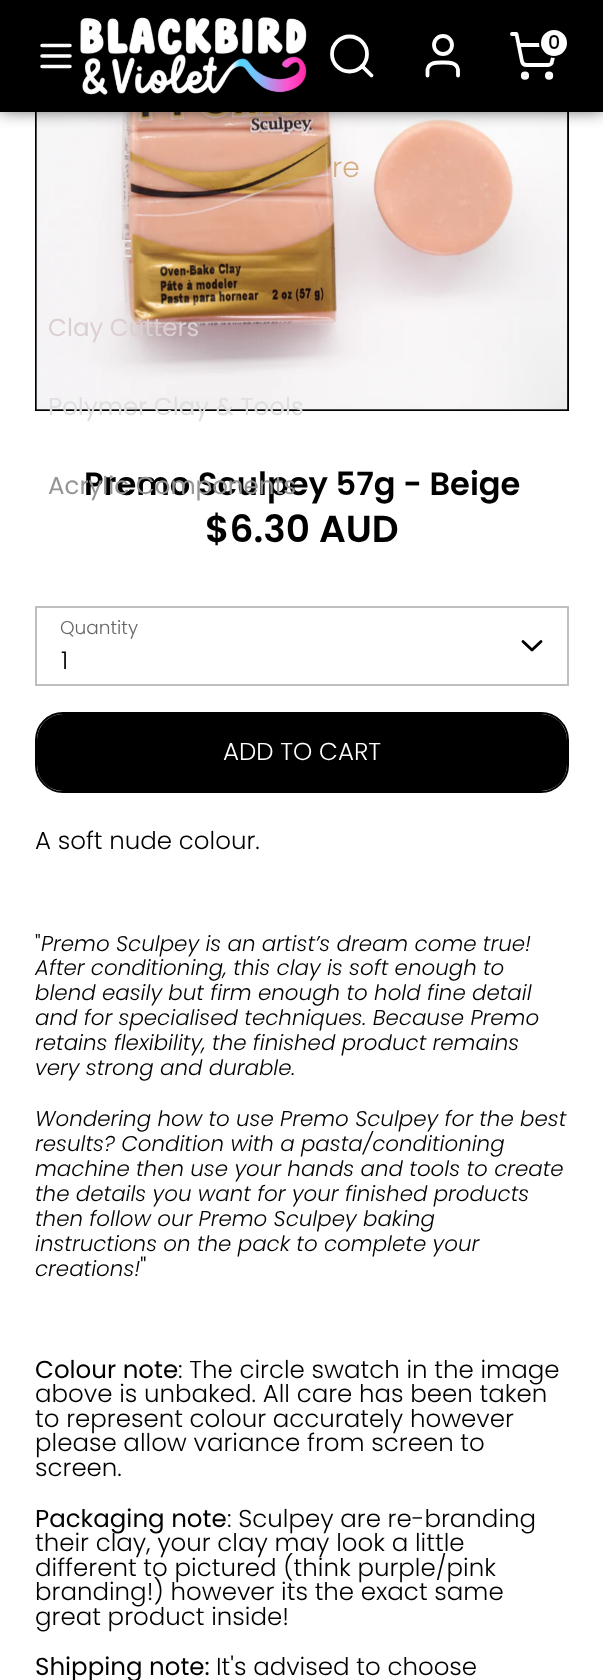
<!DOCTYPE html>
<meta charset="utf-8">
<style>body { margin: 0 } canvas { display: block }</style>
<canvas id="canvas" width="603" height="1680"></canvas>
<script type="module">
  const canvas = document.getElementById("canvas");
  const g = canvas.getContext("2d");
  g.miterLimit = 4;
  g.fontKerning = "normal";
  function drawText(s, x, y, [font, color]) {
    g.font = font;
    g.fillStyle = color;
    g.fillText(s, x, y);
  }
  function fillBox(x, y, w, h, color) {
    g.fillStyle = color;
    g.fillRect(x, y, w, h);
  }
  function fillRounded(x, y, w, h, r, color) {
    g.fillStyle = color;
    g.beginPath();
    g.roundRect(x, y, w, h, r);
    g.fill();
  }
  async function drawPicture(src, x, y, w, h) {
    const img = new Image();
    img.src = src;
    await img.decode();
    g.drawImage(img, x, y, w, h);
  }

  const s1 = ["500 19px Poppins", "#000000"];
  const s2 = ["300 28px Poppins", "#D4AA7F"];
  const s3 = ["24.5px Poppins", "#EDE6E6"];
  const s4 = ["24.5px Poppins", "#DCCFD2"];
  const s5 = ["24.5px Poppins", "#E1E0E1"];
  const s6 = ["600 32.1px Poppins", "#000000"];
  const s7 = ["24.5px Poppins", "#959595"];
  const s8 = ["600 37.5px Poppins", "#000000"];
  const s9 = ["300 18.5px Poppins", "#666666"];
  const s10 = ["300 24.5px Poppins", "#000000"];
  const s11 = ["300 24.5px Poppins", "#FFFFFF"];
  const s12 = ["300 21.4px Poppins", "#000000"];
  const s13 = ["italic 300 21.4px Poppins", "#000000"];
  const s14 = ["24.5px Poppins", "#000000"];

  fillBox(0, 0, 603, 1680, "#FFFFFF");
  g.strokeStyle = "#000000";
  g.lineWidth = 2;
  g.strokeRect(36, -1, 532, 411);
  await drawPicture("pic2.png", 36, 112, 532, 298);
  g.fillStyle = "rgba(0, 0, 0, 0.75)";
  g.filter = "blur(9px)";
  g.beginPath();
  g.rect(0, -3, 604, 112);
  g.fill();
  g.filter = "none";
  fillBox(0, 0, 603, 112, "#000000");
  await drawPicture("pic1.png", 80, 17, 227, 78);
  g.beginPath();
  g.arc(349.5, 54, 17.5, 0, Math.PI * 2);
  g.strokeStyle = "#FFFFFF";
  g.lineWidth = 3.8;
  g.stroke();
  g.beginPath();
  g.moveTo(371.5, 75.5);
  g.lineTo(362, 66);
  g.lineCap = "round";
  g.lineJoin = "round";
  g.stroke();
  g.beginPath();
  g.moveTo(458, 75.5);
  g.lineTo(458, 69.5);
  g.bezierCurveTo(456.5, 62, 449, 62.5, 443, 62.5);
  g.bezierCurveTo(436.5, 62.5, 429, 62, 427.5, 69.5);
  g.lineTo(427.5, 75.5);
  g.stroke();
  g.beginPath();
  g.arc(443, 45, 9, 0, Math.PI * 2);
  g.stroke();
  g.beginPath();
  g.arc(525, 75.7, 2.2, 0, Math.PI * 2);
  g.stroke();
  g.beginPath();
  g.arc(549.1, 75.7, 2.2, 0, Math.PI * 2);
  g.stroke();
  g.beginPath();
  g.moveTo(512, 34);
  g.lineTo(516.5, 34);
  g.lineTo(522, 61.5);
  g.bezierCurveTo(522.5, 63.5, 524.5, 65, 526.5, 65);
  g.lineTo(548, 65);
  g.bezierCurveTo(550, 65, 552, 63.5, 552, 61.5);
  g.lineTo(556, 45);
  g.lineTo(518.5, 45);
  g.stroke();
  g.fillStyle = "#FFFFFF";
  g.beginPath();
  g.arc(554, 43, 14, 0, Math.PI * 2);
  g.fill();
  g.strokeStyle = "#000000";
  g.lineWidth = 2;
  g.stroke();
  drawText("0", 548, 49, s1);
  g.beginPath();
  g.moveTo(42, 56);
  g.lineTo(70, 56);
  g.moveTo(42, 45.5);
  g.lineTo(70, 45.5);
  g.moveTo(42, 66.5);
  g.lineTo(70, 66.5);
  g.strokeStyle = "#FFFFFF";
  g.lineWidth = 3.5;
  g.stroke();
  drawText("re", 332, 177, s2);
  drawText("E", 120, 257, s3);
  drawText("Clay Cutters", 48, 336, s4);
  drawText("Polymer Clay & Tools", 48, 415, s5);
  drawText("Premo Sculpey 57g - Beige", 84, 495, s6);
  drawText("Acrylic Components", 48, 494, s7);
  drawText("$6.30 AUD", 205, 542, s8);
  drawText("Quantity", 60, 634, s9);
  g.strokeStyle = "#BFBFBF";
  g.lineWidth = 2;
  g.lineJoin = "miter";
  g.strokeRect(36, 607, 532, 78);
  g.beginPath();
  g.moveTo(523, 641.5);
  g.lineTo(532, 650);
  g.lineTo(541, 641.5);
  g.strokeStyle = "#000000";
  g.lineWidth = 2.9;
  g.lineJoin = "round";
  g.stroke();
  drawText("1", 61, 669, s10);
  g.beginPath();
  g.roundRect(36, 713, 532, 79, 27);
  g.lineWidth = 2;
  g.lineJoin = "miter";
  g.stroke();
  fillRounded(37, 714, 530, 77, 26, "#000000");
  drawText("ADD TO CART", 223, 760, s11);
  drawText("A soft nude colour.", 35, 849, s10);
  drawText("\"", 35, 951, s12);
  drawText("Premo Sculpey is an artist’s dream come true!", 41, 951, s13);
  drawText("After conditioning, this clay is soft enough to", 35, 975, s13);
  drawText("blend easily but firm enough to hold fine detail", 35, 1000, s13);
  drawText("and for specialised techniques. Because Premo", 35, 1025, s13);
  drawText("retains flexibility, the finished product remains", 35, 1050, s13);
  drawText("very strong and durable.", 35, 1075, s13);
  drawText("Wondering how to use Premo Sculpey for the best", 35, 1126, s13);
  drawText("results? Condition with a pasta/conditioning", 35, 1151, s13);
  drawText("machine then use your hands and tools to create", 35, 1176, s13);
  drawText("the details you want for your finished products", 35, 1201, s13);
  drawText("then follow our Premo Sculpey baking", 35, 1226, s13);
  drawText("instructions on the pack to complete your", 35, 1251, s13);
  drawText("creations!", 35, 1276, s13);
  drawText("\"", 140, 1276, s10);
  drawText("Colour note", 35, 1378, s14);
  drawText(": The circle swatch in the image", 178, 1378, s10);
  drawText("above is unbaked. All care has been taken", 35, 1402, s10);
  drawText("to represent colour accurately however", 35, 1427, s10);
  drawText("please allow variance from screen to", 35, 1451, s10);
  drawText("screen.", 35, 1476, s10);
  drawText("Packaging note", 35, 1527, s14);
  drawText(": Sculpey are re-branding", 227, 1527, s10);
  drawText("their clay, your clay may look a little", 35, 1551, s10);
  drawText("different to pictured (think purple/pink", 35, 1576, s10);
  drawText("branding!) however its the exact same", 35, 1600, s10);
  drawText("great product inside!", 35, 1625, s10);
  drawText("Shipping note:", 35, 1675, s14);
  drawText("It's advised to choose", 216, 1675, s10);
</script>
